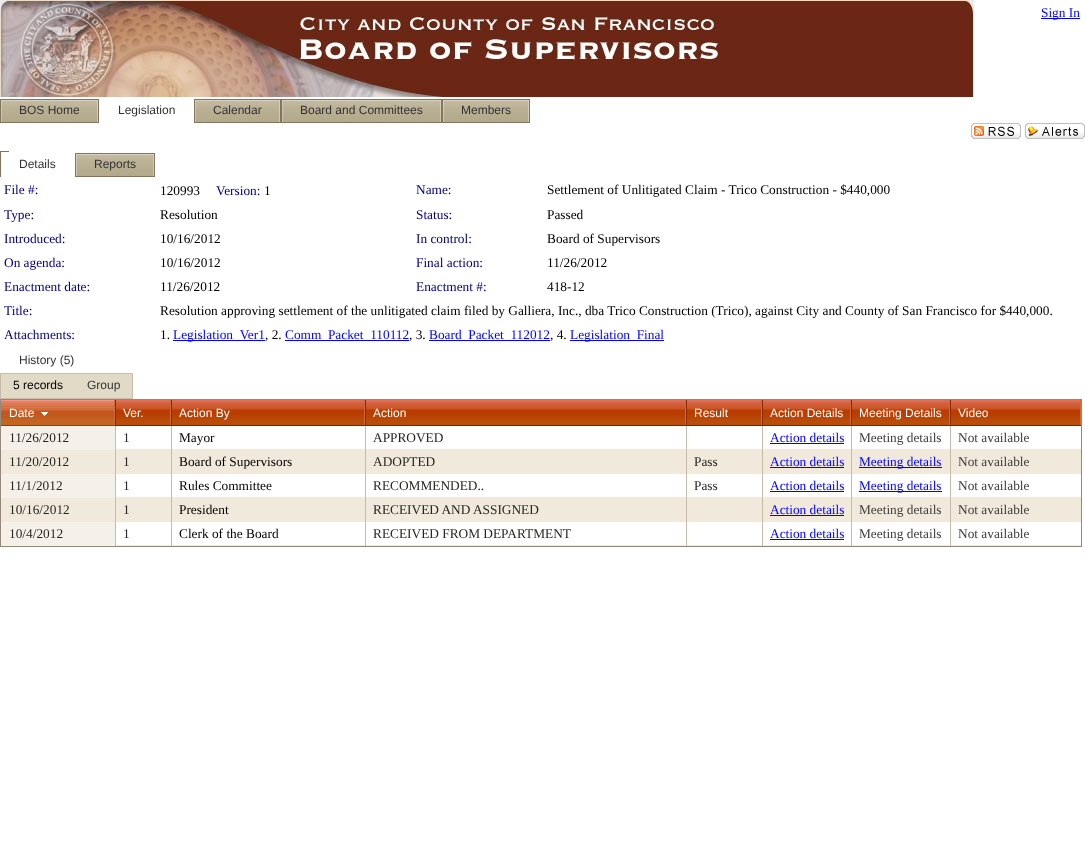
<!DOCTYPE html>
<meta charset="utf-8">
<style>body { margin: 0 } canvas { display: block }</style>
<canvas id="canvas" width="1085" height="864"></canvas>
<script type="module">
  const canvas = document.getElementById("canvas");
  const g = canvas.getContext("2d");
  g.miterLimit = 4;
  g.fontKerning = "normal";
  function drawText(s, x, y, [font, color]) {
    g.font = font;
    g.fillStyle = color;
    g.fillText(s, x, y);
  }
  function fillBox(x, y, w, h, color) {
    g.fillStyle = color;
    g.fillRect(x, y, w, h);
  }
  async function drawPicture(src, x, y, w, h) {
    const img = new Image();
    img.src = src;
    await img.decode();
    g.drawImage(img, x, y, w, h);
  }

  const s1 = ["13.33px Liberation Serif", "#0000FF"];
  const s2 = ["12px Liberation Sans", "#333333"];
  const s3 = ["13.33px Liberation Serif", "#000080"];
  const s4 = ["13.33px Liberation Serif", "#000000"];
  const s5 = ["12px Liberation Sans", "#000000"];
  const s6 = ["12px Liberation Sans", "#FFFFFF"];
  const s7 = ["13.33px Liberation Serif", "#272722"];
  const s8 = ["13.33px Liberation Serif", "#3D3D3D"];

  fillBox(0, 0, 1085, 864, "#FFFFFF");
  await drawPicture("pic1.png", 0, 0, 974, 97);
  fillBox(1041, 18, 39, 1, "#0000FF");
  drawText("Sign In", 1041, 17, s1);
  await drawPicture("pic2.png", 0, 99, 9, 24);
  await drawPicture("pic3.png", 9, 99, 90, 24);
  drawText("BOS Home", 19, 114, s2);
  drawText("Legislation", 118, 114, s2);
  await drawPicture("pic2.png", 194, 99, 9, 24);
  await drawPicture("pic4.png", 203, 99, 78, 24);
  drawText("Calendar", 213, 114, s2);
  await drawPicture("pic2.png", 281, 99, 9, 24);
  await drawPicture("pic5.png", 290, 99, 152, 24);
  drawText("Board and Committees", 300, 114, s2);
  await drawPicture("pic6.png", 442, 99, 9, 24);
  await drawPicture("pic7.png", 451, 99, 79, 24);
  drawText("Members", 461, 114, s2);
  await drawPicture("pic8.png", 971, 123, 50, 16);
  await drawPicture("pic9.png", 1025, 123, 60, 16);
  await drawPicture("pic10.png", 0, 151, 9, 26);
  drawText("Details", 19, 168, s2);
  await drawPicture("pic6.png", 75, 153, 9, 24);
  await drawPicture("pic11.png", 84, 153, 71, 24);
  drawText("Reports", 94, 168, s2);
  drawText("File #:", 4, 194, s3);
  drawText("120993", 160, 195, s4);
  drawText("Version:", 216, 195, s3);
  drawText("1", 264, 195, s4);
  drawText("Name:", 416, 194, s3);
  drawText("Settlement of Unlitigated Claim - Trico Construction - $440,000", 547, 194, s4);
  drawText("Type:", 4, 219, s3);
  drawText("Resolution", 160, 219, s4);
  drawText("Status:", 416, 219, s3);
  drawText("Passed", 547, 219, s4);
  drawText("Introduced:", 4, 243, s3);
  drawText("10/16/2012", 160, 243, s4);
  drawText("In control:", 416, 243, s3);
  drawText("Board of Supervisors", 547, 243, s4);
  drawText("On agenda:", 4, 267, s3);
  drawText("10/16/2012", 160, 267, s4);
  drawText("Final action:", 416, 267, s3);
  drawText("11/26/2012", 547, 267, s4);
  drawText("Enactment date:", 4, 291, s3);
  drawText("11/26/2012", 160, 291, s4);
  drawText("Enactment #:", 416, 291, s3);
  drawText("418-12", 547, 291, s4);
  drawText("Title:", 4, 315, s3);
  drawText("Resolution approving settlement of the unlitigated claim filed by Galliera, Inc., dba Trico Construction (Trico), against City and County of San Francisco for $440,000.", 160, 315, s4);
  drawText("Attachments:", 4, 339, s3);
  drawText("1.", 160, 339, s4);
  fillBox(173, 340, 92, 1, "#0000FF");
  drawText("Legislation_Ver1", 173, 339, s1);
  drawText(", 2.", 265, 339, s4);
  fillBox(285, 340, 124, 1, "#0000FF");
  drawText("Comm_Packet_110112", 285, 339, s1);
  drawText(", 3.", 409, 339, s4);
  fillBox(429, 340, 121, 1, "#0000FF");
  drawText("Board_Packet_112012", 429, 339, s1);
  drawText(", 4.", 550, 339, s4);
  fillBox(570, 340, 94, 1, "#0000FF");
  drawText("Legislation_Final", 570, 339, s1);
  drawText("History (5)", 19, 364, s2);
  g.fillStyle = "#E1DAC7";
  g.beginPath();
  g.rect(0.5, 373.5, 132, 25);
  g.fill();
  g.strokeStyle = "#CABAAB";
  g.stroke();
  drawText("5 records", 13, 389, s5);
  drawText("Group", 87, 389, s2);
  g.strokeStyle = "#938879";
  g.strokeRect(0.5, 399.5, 1081, 147);
  fillBox(1, 423, 113, 2, "#C36624");
  await drawPicture("pic12.png", 1, 400, 113, 23);
  fillBox(114, 400, 1, 26, "#CD6A3F");
  fillBox(1, 425, 114, 1, "#854324");
  drawText("Date", 9, 417, s6);
  await drawPicture("pic13.png", 41, 412, 7, 4);
  fillBox(116, 422, 54, 3, "#B94D0A");
  await drawPicture("pic14.png", 116, 400, 54, 22);
  fillBox(170, 400, 1, 26, "#CD6A3F");
  fillBox(115, 425, 56, 1, "#71250A");
  fillBox(115, 400, 1, 26, "#872B07");
  drawText("Ver.", 123, 417, s6);
  fillBox(172, 422, 192, 3, "#B94D0A");
  await drawPicture("pic15.png", 172, 400, 192, 22);
  fillBox(364, 400, 1, 26, "#CD6A3F");
  fillBox(171, 425, 194, 1, "#71250A");
  fillBox(171, 400, 1, 26, "#872B07");
  drawText("Action By", 179, 417, s6);
  fillBox(366, 422, 319, 3, "#B94D0A");
  await drawPicture("pic16.png", 366, 400, 319, 22);
  fillBox(685, 400, 1, 26, "#CD6A3F");
  fillBox(365, 425, 321, 1, "#71250A");
  fillBox(365, 400, 1, 26, "#872B07");
  drawText("Action", 373, 417, s6);
  fillBox(687, 422, 74, 3, "#B94D0A");
  await drawPicture("pic17.png", 687, 400, 74, 22);
  fillBox(761, 400, 1, 26, "#CD6A3F");
  fillBox(686, 425, 76, 1, "#71250A");
  fillBox(686, 400, 1, 26, "#872B07");
  drawText("Result", 694, 417, s6);
  fillBox(763, 422, 87, 3, "#B94D0A");
  await drawPicture("pic18.png", 763, 400, 87, 22);
  fillBox(850, 400, 1, 26, "#CD6A3F");
  fillBox(762, 425, 89, 1, "#71250A");
  fillBox(762, 400, 1, 26, "#872B07");
  drawText("Action Details", 770, 417, s6);
  fillBox(852, 422, 97, 3, "#B94D0A");
  await drawPicture("pic19.png", 852, 400, 97, 22);
  fillBox(949, 400, 1, 26, "#CD6A3F");
  fillBox(851, 425, 99, 1, "#71250A");
  fillBox(851, 400, 1, 26, "#872B07");
  drawText("Meeting Details", 859, 417, s6);
  fillBox(951, 422, 129, 3, "#B94D0A");
  await drawPicture("pic20.png", 951, 400, 129, 22);
  fillBox(1080, 400, 1, 26, "#CD6A3F");
  fillBox(950, 425, 131, 1, "#71250A");
  fillBox(950, 400, 1, 26, "#872B07");
  drawText("Video", 958, 417, s6);
  fillBox(1, 426, 114, 24, "#F6F1E8");
  drawText("11/26/2012", 9, 442, s7);
  fillBox(115, 449, 966, 1, "#F1E9DC");
  fillBox(115, 426, 1, 24, "#CABAAB");
  drawText("1", 123, 442, s7);
  fillBox(171, 426, 1, 24, "#CABAAB");
  drawText("Mayor", 179, 442, s4);
  fillBox(365, 426, 1, 24, "#CABAAB");
  drawText("APPROVED", 373, 442, s7);
  fillBox(686, 426, 1, 24, "#CABAAB");
  fillBox(762, 426, 1, 24, "#CABAAB");
  drawText("Action details", 770, 442, s1);
  fillBox(770, 443, 74, 1, "#0000FF");
  fillBox(851, 426, 1, 24, "#CABAAB");
  drawText("Meeting details", 859, 442, s8);
  fillBox(950, 426, 1, 24, "#CABAAB");
  drawText("Not available", 958, 442, s8);
  fillBox(1, 450, 1080, 24, "#F1E9DC");
  drawText("11/20/2012", 9, 466, s7);
  fillBox(115, 450, 1, 24, "#CABAAB");
  drawText("1", 123, 466, s7);
  fillBox(171, 450, 1, 24, "#CABAAB");
  drawText("Board of Supervisors", 179, 466, s4);
  fillBox(365, 450, 1, 24, "#CABAAB");
  drawText("ADOPTED", 373, 466, s7);
  fillBox(686, 450, 1, 24, "#CABAAB");
  drawText("Pass", 694, 466, s7);
  fillBox(762, 450, 1, 24, "#CABAAB");
  drawText("Action details", 770, 466, s1);
  fillBox(770, 467, 74, 1, "#0000FF");
  fillBox(851, 450, 1, 24, "#CABAAB");
  fillBox(859, 467, 83, 1, "#0000FF");
  drawText("Meeting details", 859, 466, s1);
  fillBox(950, 450, 1, 24, "#CABAAB");
  drawText("Not available", 958, 466, s8);
  fillBox(1, 474, 114, 24, "#F6F1E8");
  drawText("11/1/2012", 9, 490, s7);
  fillBox(115, 497, 966, 1, "#F1E9DC");
  fillBox(115, 474, 1, 24, "#CABAAB");
  drawText("1", 123, 490, s7);
  fillBox(171, 474, 1, 24, "#CABAAB");
  drawText("Rules Committee", 179, 490, s4);
  fillBox(365, 474, 1, 24, "#CABAAB");
  drawText("RECOMMENDED..", 373, 490, s7);
  fillBox(686, 474, 1, 24, "#CABAAB");
  drawText("Pass", 694, 490, s7);
  fillBox(762, 474, 1, 24, "#CABAAB");
  drawText("Action details", 770, 490, s1);
  fillBox(770, 491, 74, 1, "#0000FF");
  fillBox(851, 474, 1, 24, "#CABAAB");
  fillBox(859, 491, 83, 1, "#0000FF");
  drawText("Meeting details", 859, 490, s1);
  fillBox(950, 474, 1, 24, "#CABAAB");
  drawText("Not available", 958, 490, s8);
  fillBox(1, 498, 1080, 24, "#F1E9DC");
  drawText("10/16/2012", 9, 514, s7);
  fillBox(115, 498, 1, 24, "#CABAAB");
  drawText("1", 123, 514, s7);
  fillBox(171, 498, 1, 24, "#CABAAB");
  drawText("President", 179, 514, s4);
  fillBox(365, 498, 1, 24, "#CABAAB");
  drawText("RECEIVED AND ASSIGNED", 373, 514, s7);
  fillBox(686, 498, 1, 24, "#CABAAB");
  fillBox(762, 498, 1, 24, "#CABAAB");
  drawText("Action details", 770, 514, s1);
  fillBox(770, 515, 74, 1, "#0000FF");
  fillBox(851, 498, 1, 24, "#CABAAB");
  drawText("Meeting details", 859, 514, s8);
  fillBox(950, 498, 1, 24, "#CABAAB");
  drawText("Not available", 958, 514, s8);
  fillBox(1, 522, 114, 24, "#F6F1E8");
  drawText("10/4/2012", 9, 538, s7);
  fillBox(115, 545, 966, 1, "#F1E9DC");
  fillBox(115, 522, 1, 24, "#CABAAB");
  drawText("1", 123, 538, s7);
  fillBox(171, 522, 1, 24, "#CABAAB");
  drawText("Clerk of the Board", 179, 538, s4);
  fillBox(365, 522, 1, 24, "#CABAAB");
  drawText("RECEIVED FROM DEPARTMENT", 373, 538, s7);
  fillBox(686, 522, 1, 24, "#CABAAB");
  fillBox(762, 522, 1, 24, "#CABAAB");
  drawText("Action details", 770, 538, s1);
  fillBox(770, 539, 74, 1, "#0000FF");
  fillBox(851, 522, 1, 24, "#CABAAB");
  drawText("Meeting details", 859, 538, s8);
  fillBox(950, 522, 1, 24, "#CABAAB");
  drawText("Not available", 958, 538, s8);
</script>
